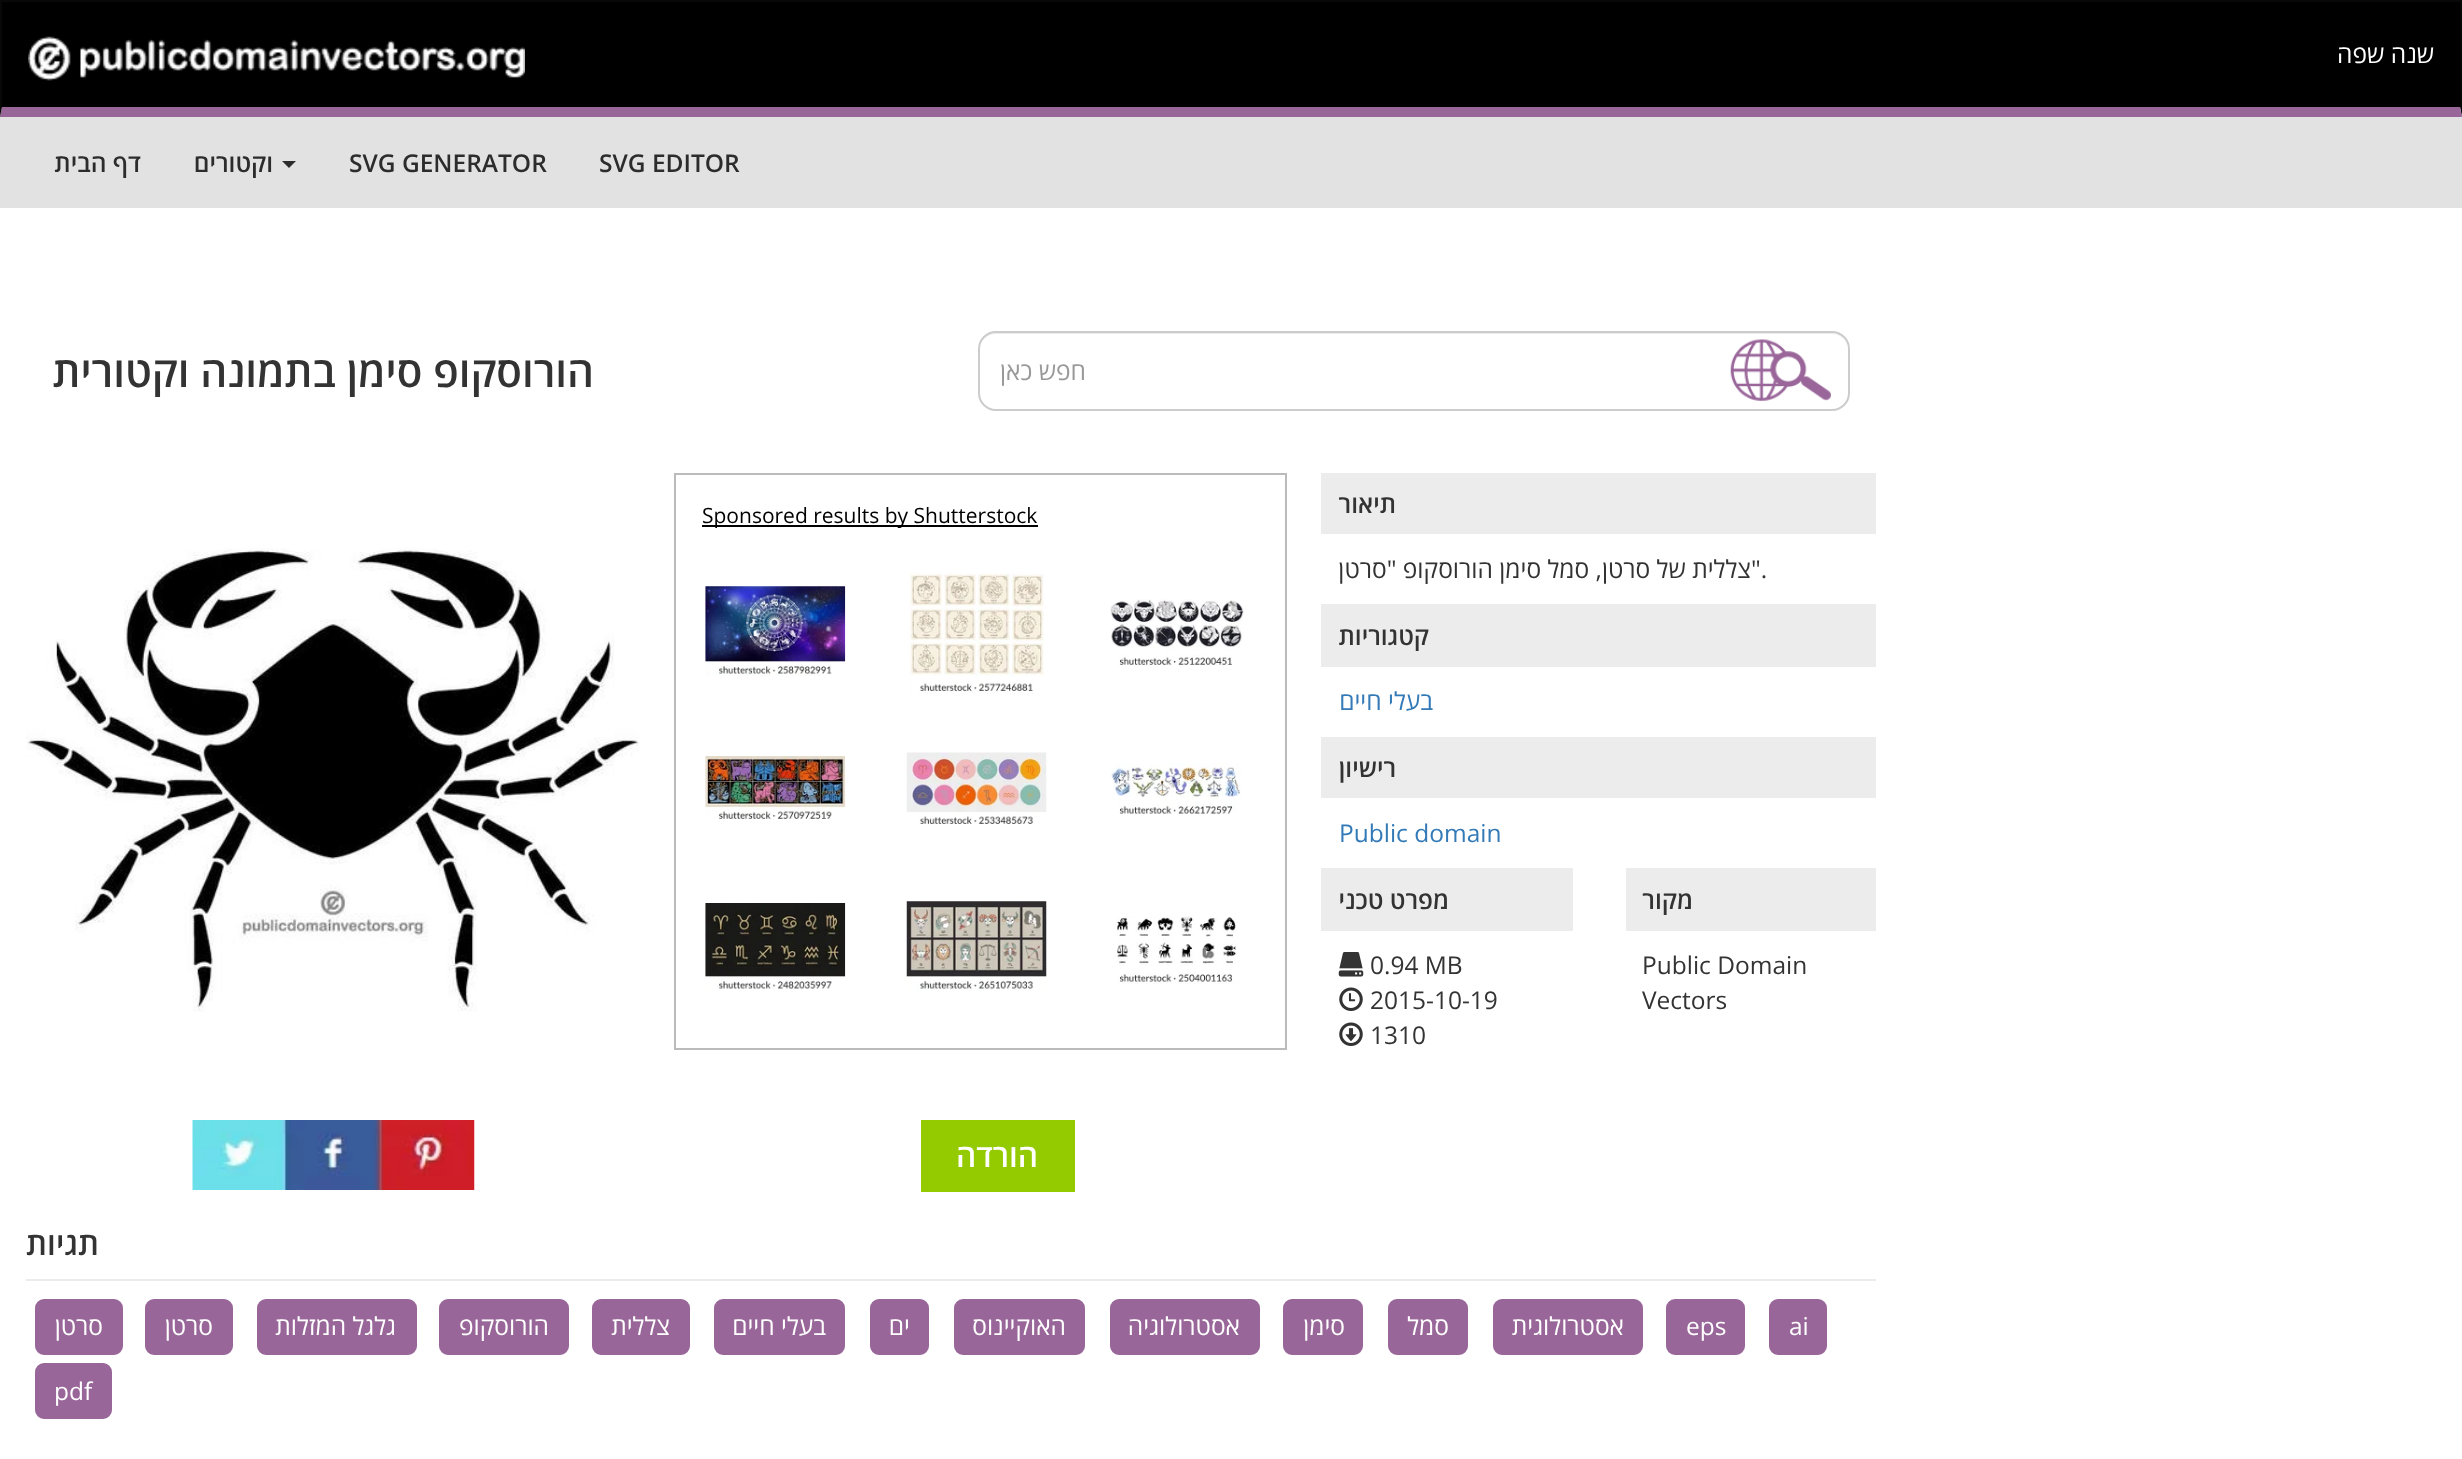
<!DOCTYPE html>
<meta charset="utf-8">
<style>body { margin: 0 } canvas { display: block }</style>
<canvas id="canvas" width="2462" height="1459"></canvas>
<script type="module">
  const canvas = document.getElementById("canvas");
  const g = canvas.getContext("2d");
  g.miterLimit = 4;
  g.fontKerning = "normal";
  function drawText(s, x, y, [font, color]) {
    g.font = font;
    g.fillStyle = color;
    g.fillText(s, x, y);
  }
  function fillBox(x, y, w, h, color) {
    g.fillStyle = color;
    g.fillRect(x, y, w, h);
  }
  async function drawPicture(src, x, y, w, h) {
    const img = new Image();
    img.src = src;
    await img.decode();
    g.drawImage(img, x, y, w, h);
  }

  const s1 = ["24.5px Open Sans", "#FFFFFF"];
  const s2 = ["600 24.5px Open Sans", "#2C2C2C"];
  const s3 = ["24.5px Open Sans", "#999999"];
  const s4 = ["600 42px Open Sans", "#333333"];
  const s5 = ["600 24.5px Open Sans", "#333333"];
  const s6 = ["24.5px Open Sans", "#333333"];
  const s7 = ["24.5px Open Sans", "#337AB7"];
  const s8 = ["21px Open Sans", "#000000"];
  const s9 = ["600 31.5px Open Sans", "#FFFFFF"];
  const s10 = ["600 31.5px Open Sans", "#333333"];

  fillBox(0, 0, 2462, 1459, "#FFFFFF");
  fillBox(2, 2, 2458, 105, "#000000");
  fillBox(0, 0, 2462, 2, "#080808");
  g.beginPath();
  g.moveTo(2462, 0);
  g.lineTo(2462, 117);
  g.lineTo(2460, 107);
  g.lineTo(2460, 2);
  g.closePath();
  g.fill();
  g.fillStyle = "#996699";
  g.beginPath();
  g.moveTo(2462, 117);
  g.lineTo(0, 117);
  g.lineTo(2, 107);
  g.lineTo(2460, 107);
  g.closePath();
  g.fill();
  g.fillStyle = "#080808";
  g.beginPath();
  g.moveTo(0, 117);
  g.lineTo(0, 0);
  g.lineTo(2, 2);
  g.lineTo(2, 107);
  g.closePath();
  g.fill();
  g.direction = "rtl";
  drawText("שנה שפה", 2434, 63, s1);
  await drawPicture("pic1.png", 28, 36, 497, 45);
  fillBox(0, 117, 2462, 91, "#E2E2E2");
  g.direction = "ltr";
  drawText("SVG EDITOR", 599, 172, s2);
  drawText("SVG GENERATOR", 349, 172, s2);
  g.beginPath();
  g.moveTo(282, 161);
  g.lineTo(296, 161);
  g.lineTo(289, 168);
  g.closePath();
  g.fill();
  g.direction = "rtl";
  drawText("וקטורים", 273, 172, s2);
  drawText("דף הבית", 141, 172, s2);
  await drawPicture("pic2.png", 1730, 339, 101, 62);
  g.fillStyle = "#ECECEC";
  g.beginPath();
  g.moveTo(996, 334);
  g.lineTo(1832, 334);
  g.bezierCurveTo(1841, 334, 1848, 341, 1848, 350);
  g.bezierCurveTo(1848, 341, 1841, 333, 1832, 333);
  g.lineTo(996, 333);
  g.bezierCurveTo(987, 333, 980, 341, 980, 350);
  g.bezierCurveTo(980, 341, 987, 334, 996, 334);
  g.closePath();
  g.fill();
  g.beginPath();
  g.roundRect(979, 332, 870, 78, 17);
  g.strokeStyle = "#CCCCCC";
  g.lineWidth = 2;
  g.stroke();
  drawText("חפש כאן", 1086, 380, s3);
  drawText("הורוסקופ סימן בתמונה וקטורית", 594, 387, s4);
  fillBox(1321, 473, 555, 61, "#ECECEC");
  drawText("תיאור", 1396, 513, s5);
  g.direction = "ltr";
  drawText("\".", 1751, 578, s6);
  g.direction = "rtl";
  drawText("צללית של סרטן, סמל סימן הורוסקופ \"סרטן", 1751, 578, s6);
  fillBox(1321, 604, 555, 63, "#ECECEC");
  drawText("קטגוריות", 1429, 645, s5);
  drawText("בעלי חיים", 1433, 710, s7);
  fillBox(1321, 737, 555, 61, "#ECECEC");
  drawText("רישיון", 1396, 777, s5);
  g.direction = "ltr";
  drawText("Public domain", 1339, 842, s7);
  fillBox(1626, 868, 250, 63, "#ECECEC");
  g.direction = "rtl";
  drawText("מקור", 1693, 909, s5);
  g.direction = "ltr";
  drawText("Public Domain", 1642, 974, s6);
  drawText("Vectors", 1642, 1009, s6);
  fillBox(1321, 868, 252, 63, "#ECECEC");
  g.direction = "rtl";
  drawText("מפרט טכני", 1449, 909, s5);
  g.direction = "ltr";
  drawText("0.94 MB", 1370, 974, s6);
  await drawPicture("pic3.png", 1338, 952, 26, 25);
  drawText("2015-10-19", 1370, 1009, s6);
  await drawPicture("pic4.png", 1339, 987, 24, 24);
  drawText("1310", 1370, 1044, s6);
  await drawPicture("pic5.png", 1339, 1022, 24, 24);
  fillBox(674, 473, 612, 2, "#BBBBBB");
  fillBox(1285, 473, 2, 577, "#BBBBBB");
  fillBox(674, 473, 2, 87, "#BBBBBB");
  fillBox(702, 525, 336, 2, "#000000");
  drawText("Sponsored results by Shutterstock", 702, 523, s8);
  fillBox(674, 1048, 612, 2, "#BBBBBB");
  fillBox(674, 560, 2, 490, "#BBBBBB");
  await drawPicture("pic6.png", 1110, 599, 134, 67);
  await drawPicture("pic7.png", 909, 573, 136, 121);
  await drawPicture("pic8.png", 705, 586, 141, 90);
  await drawPicture("pic9.png", 1110, 763, 131, 51);
  await drawPicture("pic10.png", 906, 752, 141, 72);
  await drawPicture("pic11.png", 705, 756, 141, 63);
  await drawPicture("pic12.png", 1117, 916, 120, 68);
  await drawPicture("pic13.png", 906, 901, 141, 90);
  await drawPicture("pic14.png", 705, 903, 141, 86);
  fillBox(921, 1120, 154, 72, "#94CB00");
  g.direction = "rtl";
  drawText("הורדה", 1038, 1167, s9);
  await drawPicture("pic15.png", 26, 548, 613, 464);
  await drawPicture("pic16.png", 192, 1120, 283, 70);
  fillBox(26, 1279, 1850, 2, "#ECECEC");
  drawText("תגיות", 99, 1255, s10);
  g.fillStyle = "#996699";
  g.beginPath();
  g.roundRect(1770, 1300, 56, 54, 8);
  g.fill();
  g.strokeStyle = "#996699";
  g.stroke();
  g.direction = "ltr";
  drawText("ai", 1789, 1335, s1);
  g.fillStyle = "#996699";
  g.beginPath();
  g.roundRect(1667, 1300, 77, 54, 8);
  g.fill();
  g.stroke();
  drawText("eps", 1686, 1335, s1);
  g.fillStyle = "#996699";
  g.beginPath();
  g.roundRect(1494, 1300, 148, 54, 8);
  g.fill();
  g.stroke();
  g.direction = "rtl";
  drawText("אסטרולוגית", 1624, 1335, s1);
  g.fillStyle = "#996699";
  g.beginPath();
  g.roundRect(1389, 1300, 78, 54, 8);
  g.fill();
  g.stroke();
  drawText("סמל", 1449, 1335, s1);
  g.fillStyle = "#996699";
  g.beginPath();
  g.roundRect(1284, 1300, 78, 54, 8);
  g.fill();
  g.stroke();
  drawText("סימן", 1345, 1335, s1);
  g.fillStyle = "#996699";
  g.beginPath();
  g.roundRect(1111, 1300, 148, 54, 8);
  g.fill();
  g.stroke();
  drawText("אסטרולוגיה", 1240, 1335, s1);
  g.fillStyle = "#996699";
  g.beginPath();
  g.roundRect(955, 1300, 129, 54, 8);
  g.fill();
  g.stroke();
  drawText("האוקיינוס", 1066, 1335, s1);
  g.fillStyle = "#996699";
  g.beginPath();
  g.roundRect(871, 1300, 57, 54, 8);
  g.fill();
  g.stroke();
  drawText("ים", 910, 1335, s1);
  g.fillStyle = "#996699";
  g.beginPath();
  g.roundRect(715, 1300, 129, 54, 8);
  g.fill();
  g.stroke();
  drawText("בעלי חיים", 826, 1335, s1);
  g.fillStyle = "#996699";
  g.beginPath();
  g.roundRect(593, 1300, 96, 54, 8);
  g.fill();
  g.stroke();
  drawText("צללית", 670, 1335, s1);
  g.fillStyle = "#996699";
  g.beginPath();
  g.roundRect(440, 1300, 128, 54, 8);
  g.fill();
  g.stroke();
  drawText("הורוסקופ", 549, 1335, s1);
  g.fillStyle = "#996699";
  g.beginPath();
  g.roundRect(258, 1300, 158, 54, 8);
  g.fill();
  g.stroke();
  drawText("גלגל המזלות", 396, 1335, s1);
  g.fillStyle = "#996699";
  g.beginPath();
  g.roundRect(146, 1300, 86, 54, 8);
  g.fill();
  g.stroke();
  drawText("סרטן", 213, 1335, s1);
  g.fillStyle = "#996699";
  g.beginPath();
  g.roundRect(36, 1300, 86, 54, 8);
  g.fill();
  g.stroke();
  drawText("סרטן", 103, 1335, s1);
  g.fillStyle = "#996699";
  g.beginPath();
  g.roundRect(36, 1364, 75, 54, 8);
  g.fill();
  g.stroke();
  g.direction = "ltr";
  drawText("pdf", 54, 1400, s1);
</script>
